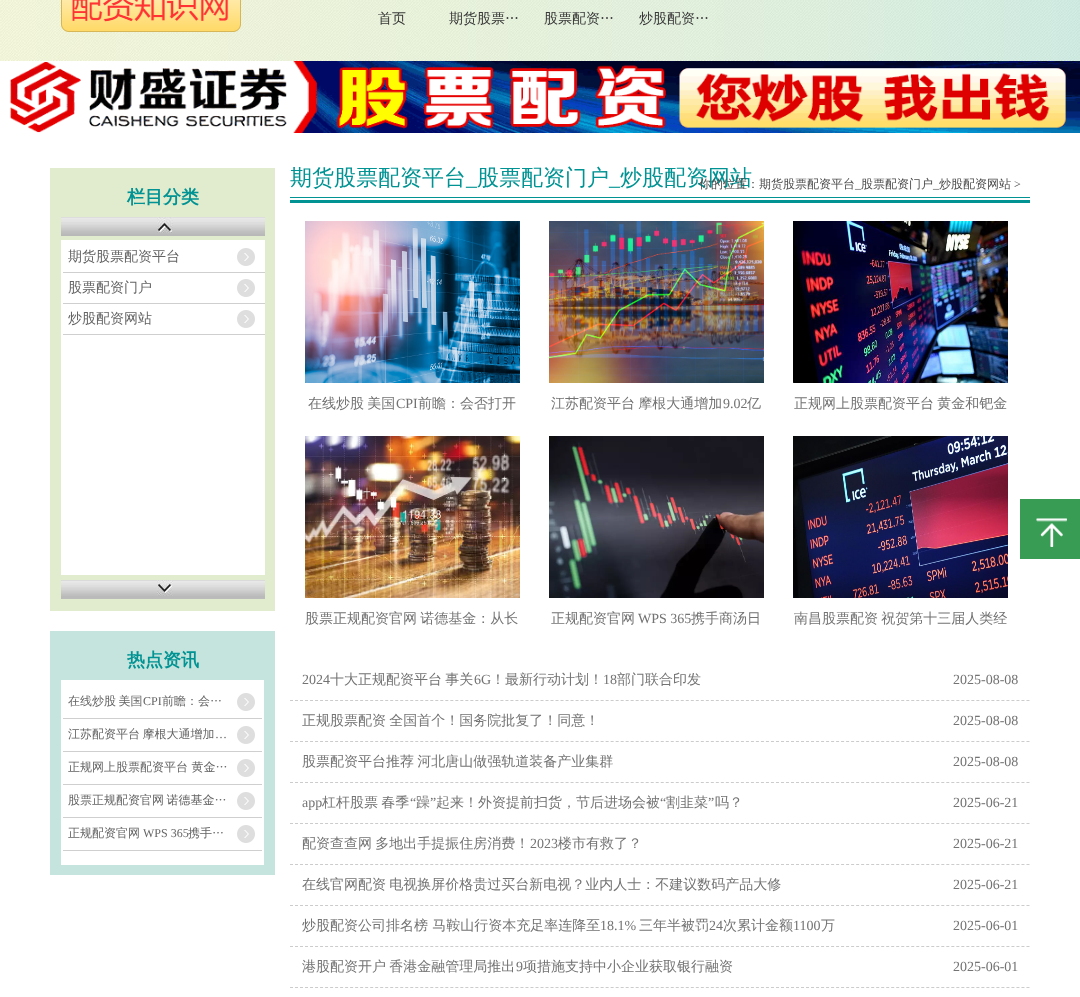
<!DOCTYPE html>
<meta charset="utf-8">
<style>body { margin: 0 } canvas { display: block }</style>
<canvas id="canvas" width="1080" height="997"></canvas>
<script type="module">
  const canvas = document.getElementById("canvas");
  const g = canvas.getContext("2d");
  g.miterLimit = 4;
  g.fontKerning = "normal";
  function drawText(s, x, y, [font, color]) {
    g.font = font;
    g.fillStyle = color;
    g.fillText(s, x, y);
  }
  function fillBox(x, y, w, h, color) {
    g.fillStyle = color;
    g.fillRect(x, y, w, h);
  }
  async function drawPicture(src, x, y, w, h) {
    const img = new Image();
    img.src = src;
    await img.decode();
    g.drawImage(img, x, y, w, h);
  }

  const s1 = ["500 14px WenQuanYi Zen Hei", "#383838"];
  const s2 = ["bold 18px WenQuanYi Zen Hei", "#019393"];
  const s3 = ["500 14px WenQuanYi Zen Hei", "#646464"];
  const s4 = ["500 12px WenQuanYi Zen Hei", "#646464"];
  const s5 = ["12px Liberation Serif", "#646464"];
  const s6 = ["500 22px WenQuanYi Zen Hei", "#019393"];
  const s7 = ["22px Liberation Serif", "#019393"];
  const s8 = ["500 12px WenQuanYi Zen Hei", "#4C4C4C"];
  const s9 = ["12px Liberation Serif", "#4C4C4C"];
  const s10 = ["500 14px WenQuanYi Zen Hei", "#737373"];
  const s11 = ["14px Liberation Serif", "#737373"];

  fillBox(0, 0, 1080, 997, "#FFFFFF");
  await drawPicture("pic1.png", 0, 0, 1080, 61);
  await drawPicture("pic2.png", 61, 0, 180, 32);
  drawText("首页", 378, 23, s1);
  drawText("期货股票…", 449, 23, s1);
  drawText("股票配资…", 544, 23, s1);
  drawText("炒股配资…", 639, 23, s1);
  await drawPicture("pic3.png", 10, 61, 1070, 72);
  fillBox(50, 168, 225, 443, "#E1EBCE");
  drawText("栏目分类", 127, 203, s2);
  await drawPicture("pic4.png", 61, 217, 204, 19);
  fillBox(61, 240, 204, 335, "#FFFFFF");
  await drawPicture("pic5.png", 237, 248, 18, 18);
  fillBox(63, 272, 202, 1, "#CFCFCF");
  drawText("期货股票配资平台", 68, 261, s3);
  await drawPicture("pic5.png", 237, 279, 18, 18);
  fillBox(63, 303, 202, 1, "#CFCFCF");
  drawText("股票配资门户", 68, 292, s3);
  await drawPicture("pic5.png", 237, 310, 18, 18);
  fillBox(63, 334, 202, 1, "#CFCFCF");
  drawText("炒股配资网站", 68, 323, s3);
  await drawPicture("pic6.png", 61, 580, 204, 19);
  fillBox(50, 631, 225, 244, "#C5E4DD");
  drawText("热点资讯", 127, 666, s2);
  fillBox(61, 680, 203, 185, "#FFFFFF");
  await drawPicture("pic5.png", 237, 693, 18, 18);
  fillBox(63, 718, 199, 1, "#CFCFCF");
  g.wordSpacing = "-1px";
  drawText("在线炒股 美国", 68, 705, s4);
  g.wordSpacing = "0px";
  drawText("CPI", 143, 705, s5);
  drawText("前瞻：会…", 162, 705, s4);
  await drawPicture("pic5.png", 237, 726, 18, 18);
  fillBox(63, 751, 199, 1, "#CFCFCF");
  g.wordSpacing = "-1px";
  drawText("江苏配资平台 摩根大通增加", 68, 738, s4);
  g.wordSpacing = "0px";
  drawText("…", 215, 738, s5);
  await drawPicture("pic5.png", 237, 759, 18, 18);
  fillBox(63, 784, 199, 1, "#CFCFCF");
  drawText("正规网上股票配资平台 黄金…", 68, 771, s4);
  await drawPicture("pic5.png", 237, 792, 18, 18);
  fillBox(63, 817, 199, 1, "#CFCFCF");
  g.wordSpacing = "-1px";
  drawText("股票正规配资官网 诺德基金…", 68, 804, s4);
  await drawPicture("pic5.png", 237, 825, 18, 18);
  fillBox(63, 850, 199, 1, "#CFCFCF");
  g.wordSpacing = "0px";
  drawText("正规配资官网", 68, 837, s4);
  drawText("WPS 365", 143, 837, s5);
  drawText("携手…", 188, 837, s4);
  await drawPicture("pic7.png", 290, 197, 740, 6);
  drawText("期货股票配资平台", 290, 185, s6);
  drawText("_", 466, 185, s7);
  drawText("股票配资门户", 477, 185, s6);
  drawText("_", 609, 185, s7);
  drawText("炒股配资网站", 620, 185, s6);
  drawText("你的位置：期货股票配资平台", 699, 188, s8);
  drawText("_", 855, 188, s9);
  drawText("股票配资门户", 861, 188, s8);
  drawText("_", 933, 188, s9);
  drawText("炒股配资网站", 939, 188, s8);
  drawText(">", 1014, 188, s9);
  await drawPicture("pic8.png", 305, 221, 215, 162);
  g.wordSpacing = "-1px";
  drawText("在线炒股 美国", 308, 408, s10);
  g.wordSpacing = "0px";
  drawText("CPI", 396, 408, s11);
  drawText("前瞻：会否打开", 418, 408, s10);
  await drawPicture("pic9.png", 549, 221, 215, 162);
  g.wordSpacing = "-1px";
  drawText("江苏配资平台 摩根大通增加", 551, 408, s10);
  g.wordSpacing = "0px";
  drawText("9.02", 723, 408, s11);
  drawText("亿", 747, 408, s10);
  await drawPicture("pic10.png", 793, 221, 215, 162);
  g.wordSpacing = "-1px";
  drawText("正规网上股票配资平台 黄金和钯金", 794, 408, s10);
  await drawPicture("pic11.png", 305, 436, 215, 162);
  drawText("股票正规配资官网 诺德基金：从长", 305, 623, s10);
  await drawPicture("pic12.png", 549, 436, 215, 162);
  g.wordSpacing = "0px";
  drawText("正规配资官网", 551, 623, s10);
  drawText("WPS 365", 638, 623, s11);
  drawText("携手商汤日", 691, 623, s10);
  await drawPicture("pic13.png", 793, 436, 215, 162);
  g.wordSpacing = "-1px";
  drawText("南昌股票配资 祝贺第十三届人类经", 794, 623, s10);
  g.beginPath();
  g.moveTo(290, 700.5);
  g.lineTo(1030, 700.5);
  g.strokeStyle = "#CCCCCC";
  g.setLineDash([3, 2.01]);
  g.stroke();
  g.wordSpacing = "0px";
  drawText("2024", 302, 684, s11);
  g.wordSpacing = "-1px";
  drawText("十大正规配资平台 事关", 330, 684, s10);
  g.wordSpacing = "0px";
  drawText("6G", 474, 684, s11);
  drawText("！最新行动计划！", 491, 684, s10);
  drawText("18", 603, 684, s11);
  drawText("部门联合印发", 617, 684, s10);
  drawText("2025-08-08", 953, 684, s11);
  g.beginPath();
  g.moveTo(290, 741.5);
  g.lineTo(1030, 741.5);
  g.stroke();
  g.wordSpacing = "-1px";
  drawText("正规股票配资 全国首个！国务院批复了！同意！", 302, 725, s10);
  g.wordSpacing = "0px";
  drawText("2025-08-08", 953, 725, s11);
  g.beginPath();
  g.moveTo(290, 782.5);
  g.lineTo(1030, 782.5);
  g.stroke();
  g.wordSpacing = "-1px";
  drawText("股票配资平台推荐 河北唐山做强轨道装备产业集群", 302, 766, s10);
  g.wordSpacing = "0px";
  drawText("2025-08-08", 953, 766, s11);
  g.beginPath();
  g.moveTo(290, 823.5);
  g.lineTo(1030, 823.5);
  g.stroke();
  g.wordSpacing = "-1px";
  drawText("杠杆股票 春季", 322, 807, s10);
  g.wordSpacing = "0px";
  drawText("“", 410, 807, s11);
  drawText("躁", 416, 807, s10);
  drawText("”", 430, 807, s11);
  drawText("起来！外资提前扫货，节后进场会被", 436, 807, s10);
  drawText("“", 660, 807, s11);
  drawText("割韭菜", 666, 807, s10);
  drawText("”", 708, 807, s11);
  drawText("吗？", 715, 807, s10);
  drawText("app", 302, 807, s11);
  drawText("2025-06-21", 953, 807, s11);
  g.beginPath();
  g.moveTo(290, 864.5);
  g.lineTo(1030, 864.5);
  g.stroke();
  g.wordSpacing = "-1px";
  drawText("配资查查网 多地出手提振住房消费！", 302, 848, s10);
  g.wordSpacing = "0px";
  drawText("2023", 530, 848, s11);
  drawText("楼市有救了？", 558, 848, s10);
  drawText("2025-06-21", 953, 848, s11);
  g.beginPath();
  g.moveTo(290, 905.5);
  g.lineTo(1030, 905.5);
  g.stroke();
  g.wordSpacing = "-1px";
  drawText("在线官网配资 电视换屏价格贵过买台新电视？业内人士：不建议数码产品大修", 302, 889, s10);
  g.wordSpacing = "0px";
  drawText("2025-06-21", 953, 889, s11);
  g.beginPath();
  g.moveTo(290, 946.5);
  g.lineTo(1030, 946.5);
  g.stroke();
  drawText("炒股配资公司排名榜 马鞍山行资本充足率连降至", 302, 930, s10);
  drawText("18.1%", 600, 930, s11);
  drawText("三年半被罚", 639, 930, s10);
  drawText("24", 709, 930, s11);
  drawText("次累计金额", 723, 930, s10);
  drawText("1100", 793, 930, s11);
  drawText("万", 821, 930, s10);
  drawText("2025-06-01", 953, 930, s11);
  g.beginPath();
  g.moveTo(290, 987.5);
  g.lineTo(1030, 987.5);
  g.stroke();
  g.wordSpacing = "-1px";
  drawText("港股配资开户 香港金融管理局推出", 302, 971, s10);
  g.wordSpacing = "0px";
  drawText("9", 516, 971, s11);
  drawText("项措施支持中小企业获取银行融资", 523, 971, s10);
  drawText("2025-06-01", 953, 971, s11);
  fillBox(1020, 499, 60, 60, "#399C55");
  await drawPicture("pic14.png", 1036, 518, 31, 29);
</script>
